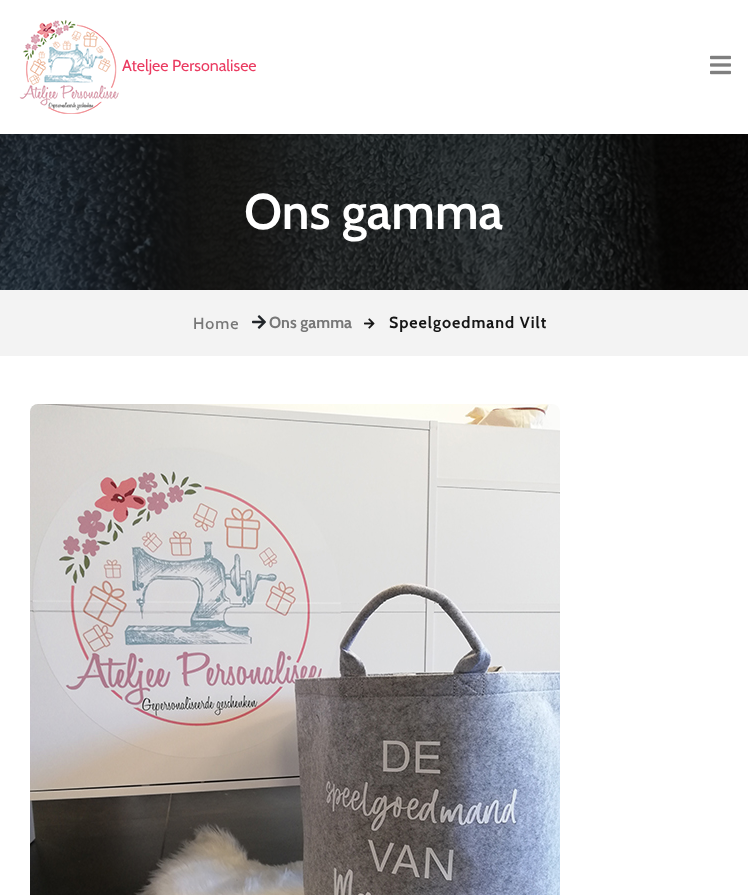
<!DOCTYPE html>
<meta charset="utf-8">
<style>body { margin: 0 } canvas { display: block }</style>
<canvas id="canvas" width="748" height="895"></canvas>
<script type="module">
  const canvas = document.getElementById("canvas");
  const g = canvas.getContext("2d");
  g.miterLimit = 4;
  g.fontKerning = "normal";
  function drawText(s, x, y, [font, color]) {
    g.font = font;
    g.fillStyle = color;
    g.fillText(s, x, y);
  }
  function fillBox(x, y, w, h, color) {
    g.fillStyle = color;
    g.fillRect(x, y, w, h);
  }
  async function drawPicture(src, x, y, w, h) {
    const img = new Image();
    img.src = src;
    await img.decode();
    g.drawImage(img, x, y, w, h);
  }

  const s1 = ["16px Cabin", "#EA3A60"];
  const s2 = ["600 50px Cabin", "#FFFFFF"];
  const s3 = ["500 16px Cabin", "#777777"];
  const s4 = ["bold 16px Cabin", "#777777"];
  const s5 = ["bold 16px Cabin", "#151515"];

  fillBox(0, 0, 748, 895, "#FFFFFF");
  await drawPicture("pic1.png", 19, 20, 100, 94);
  drawText("Ateljee Personalisee", 122, 71, s1);
  await drawPicture("pic2.png", 710, 55, 21, 20);
  await drawPicture("pic3.png", 0, 134, 748, 156);
  drawText("Ons gamma", 244, 229, s2);
  fillBox(0, 290, 748, 66, "#F3F3F3");
  g.letterSpacing = "1px";
  drawText("Home", 193, 329, s3);
  await drawPicture("pic4.png", 252, 315, 14, 14);
  g.letterSpacing = "0px";
  drawText("Ons gamma", 269, 328, s4);
  await drawPicture("pic5.png", 364, 318, 11, 11);
  g.letterSpacing = "1px";
  drawText("Speelgoedmand Vilt", 389, 328, s5);
  await drawPicture("pic6.png", 30, 404, 530, 491);
</script>
